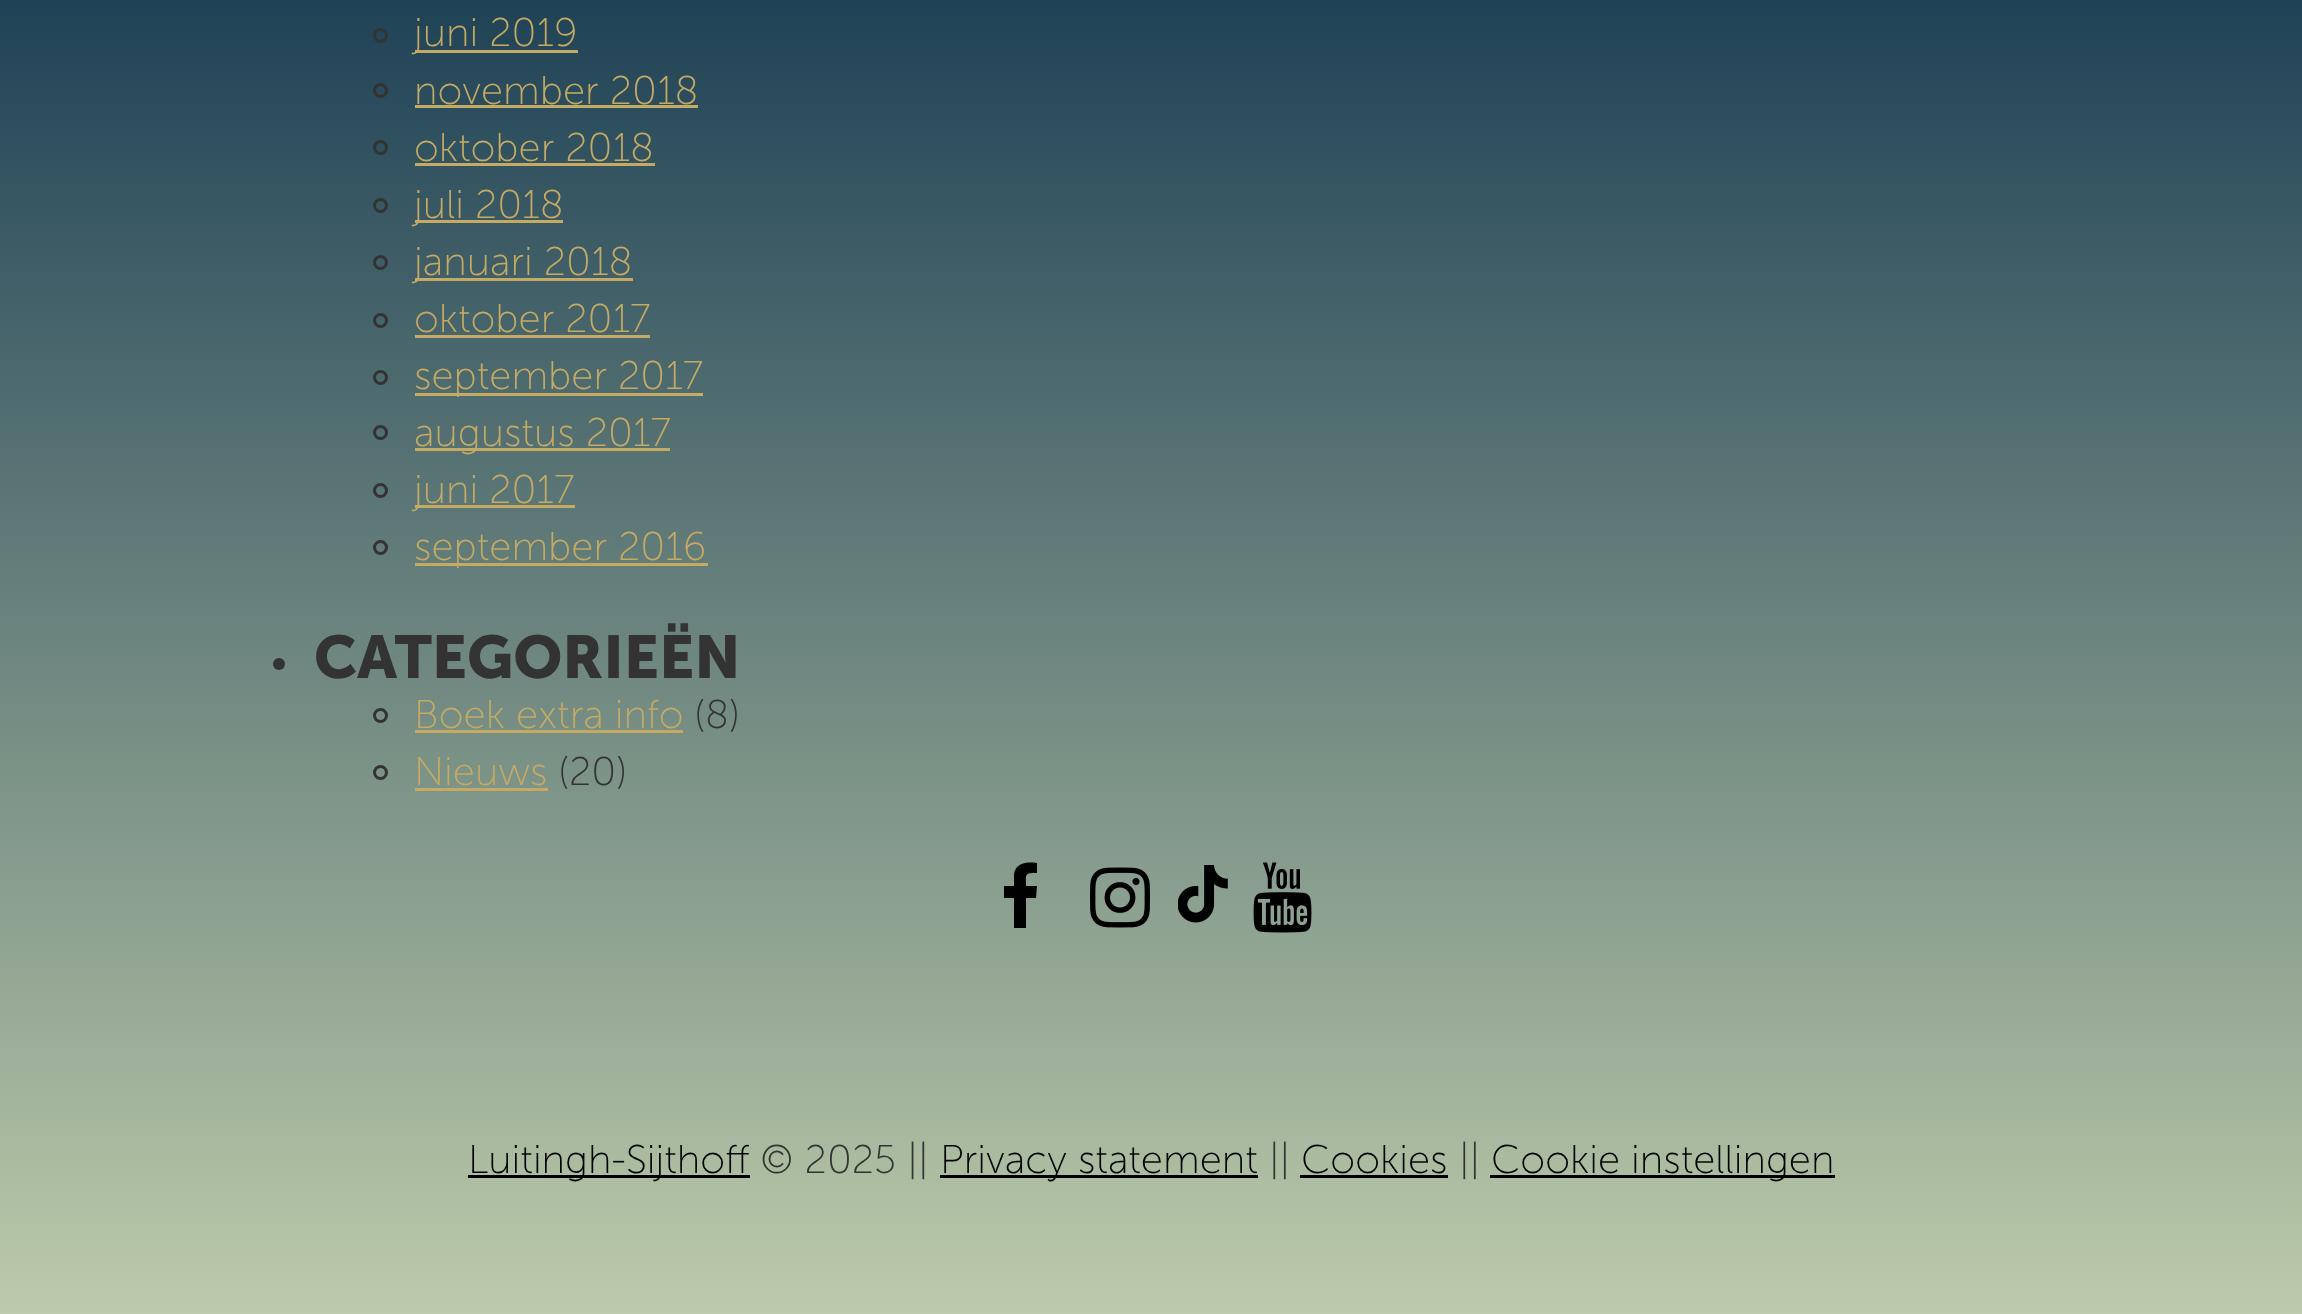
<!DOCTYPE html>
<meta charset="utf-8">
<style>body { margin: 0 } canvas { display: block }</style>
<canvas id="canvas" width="2302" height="1314"></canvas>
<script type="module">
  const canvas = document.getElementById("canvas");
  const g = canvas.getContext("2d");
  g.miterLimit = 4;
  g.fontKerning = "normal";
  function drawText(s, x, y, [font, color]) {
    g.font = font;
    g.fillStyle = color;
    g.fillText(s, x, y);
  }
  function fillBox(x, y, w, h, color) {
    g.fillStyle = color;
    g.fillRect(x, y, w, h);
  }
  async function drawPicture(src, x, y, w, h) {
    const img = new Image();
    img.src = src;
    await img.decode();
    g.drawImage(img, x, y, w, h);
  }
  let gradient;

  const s1 = ["300 40px 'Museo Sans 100'", "#C5AA64"];
  const s2 = ["bold 60px 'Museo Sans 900'", "#333333"];
  const s3 = ["300 40px 'Museo Sans 100'", "#333333"];
  const s4 = ["300 40px 'Museo Sans 100'", "#000000"];

  fillBox(0, 0, 2302, 1314, "#FFFFFF");
  gradient = g.createLinearGradient(1151, 0, 1151, 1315);
  gradient.addColorStop(0, "#1F4256");
  gradient.addColorStop(1, "#BDCBAA");
  g.fillStyle = gradient;
  g.fillRect(0, 0, 2302, 1314);
  g.beginPath();
  g.arc(380.5, 35.5, 6, 0, Math.PI * 2);
  g.strokeStyle = "#333333";
  g.lineWidth = 3;
  g.stroke();
  fillBox(415, 50, 163, 3, "#C5AA64");
  drawText("juni 2019", 414, 46, s1);
  g.beginPath();
  g.arc(380.5, 90.5, 6, 0, Math.PI * 2);
  g.stroke();
  drawText("november 2018", 414, 104, s1);
  fillBox(415, 105, 283, 3, "#C5AA64");
  g.beginPath();
  g.arc(380.5, 147.5, 6, 0, Math.PI * 2);
  g.stroke();
  drawText("oktober 2018", 414, 161, s1);
  fillBox(415, 163, 240, 3, "#C5AA64");
  g.beginPath();
  g.arc(380.5, 205.5, 6, 0, Math.PI * 2);
  g.stroke();
  fillBox(415, 220, 148, 3, "#C5AA64");
  drawText("juli 2018", 414, 218, s1);
  g.beginPath();
  g.arc(380.5, 262.5, 6, 0, Math.PI * 2);
  g.stroke();
  fillBox(415, 278, 218, 3, "#C5AA64");
  drawText("januari 2018", 414, 275, s1);
  g.beginPath();
  g.arc(380.5, 320.5, 6, 0, Math.PI * 2);
  g.stroke();
  drawText("oktober 2017", 414, 332, s1);
  fillBox(415, 335, 235, 3, "#C5AA64");
  g.beginPath();
  g.arc(380.5, 377.5, 6, 0, Math.PI * 2);
  g.stroke();
  fillBox(415, 393, 288, 3, "#C5AA64");
  drawText("september 2017", 414, 389, s1);
  g.beginPath();
  g.arc(380.5, 432.5, 6, 0, Math.PI * 2);
  g.stroke();
  fillBox(415, 448, 255, 3, "#C5AA64");
  drawText("augustus 2017", 414, 446, s1);
  g.beginPath();
  g.arc(380.5, 490.5, 6, 0, Math.PI * 2);
  g.stroke();
  fillBox(415, 505, 160, 3, "#C5AA64");
  drawText("juni 2017", 414, 503, s1);
  g.beginPath();
  g.arc(380.5, 547.5, 6, 0, Math.PI * 2);
  g.stroke();
  fillBox(415, 563, 293, 3, "#C5AA64");
  drawText("september 2016", 414, 560, s1);
  g.fillStyle = "#333333";
  g.beginPath();
  g.arc(279, 664, 6, 0, Math.PI * 2);
  g.fill();
  drawText("CATEGORIEËN", 314, 678, s2);
  g.beginPath();
  g.arc(380.5, 715.5, 6, 0, Math.PI * 2);
  g.stroke();
  drawText("Boek extra info", 414, 728, s1);
  fillBox(415, 730, 268, 3, "#C5AA64");
  drawText("(8)", 694, 728, s3);
  g.beginPath();
  g.arc(380.5, 772.5, 6, 0, Math.PI * 2);
  g.stroke();
  drawText("Nieuws", 414, 785, s1);
  fillBox(415, 788, 133, 3, "#C5AA64");
  drawText("(20)", 558, 785, s3);
  g.fillStyle = "#000000";
  g.beginPath();
  g.moveTo(1037, 863);
  g.lineTo(1037, 873);
  g.bezierCurveTo(1024, 873, 1026, 874, 1026, 886);
  g.lineTo(1037, 886);
  g.lineTo(1036, 898);
  g.lineTo(1026, 898);
  g.lineTo(1026, 928);
  g.lineTo(1014, 928);
  g.lineTo(1014, 898);
  g.lineTo(1004, 898);
  g.lineTo(1004, 886);
  g.lineTo(1014, 886);
  g.lineTo(1014, 874);
  g.bezierCurveTo(1016, 862, 1028, 862, 1037, 863);
  g.closePath();
  g.fill();
  await drawPicture("pic1.png", 1090, 867, 60, 61);
  await drawPicture("pic2.png", 1178, 865, 50, 58);
  await drawPicture("pic3.png", 1253, 862, 59, 71);
  fillBox(468, 1175, 282, 3, "#000000");
  drawText("Luitingh-Sijthoff", 468, 1173, s4);
  drawText("© 2025 ||", 760, 1173, s3);
  fillBox(940, 1175, 318, 3, "#000000");
  drawText("Privacy statement", 940, 1173, s4);
  drawText("||", 1269, 1173, s3);
  drawText("Cookies", 1301, 1173, s4);
  fillBox(1300, 1175, 148, 3, "#000000");
  drawText("||", 1459, 1173, s3);
  fillBox(1490, 1175, 345, 3, "#000000");
  drawText("Cookie instellingen", 1491, 1173, s4);
</script>
